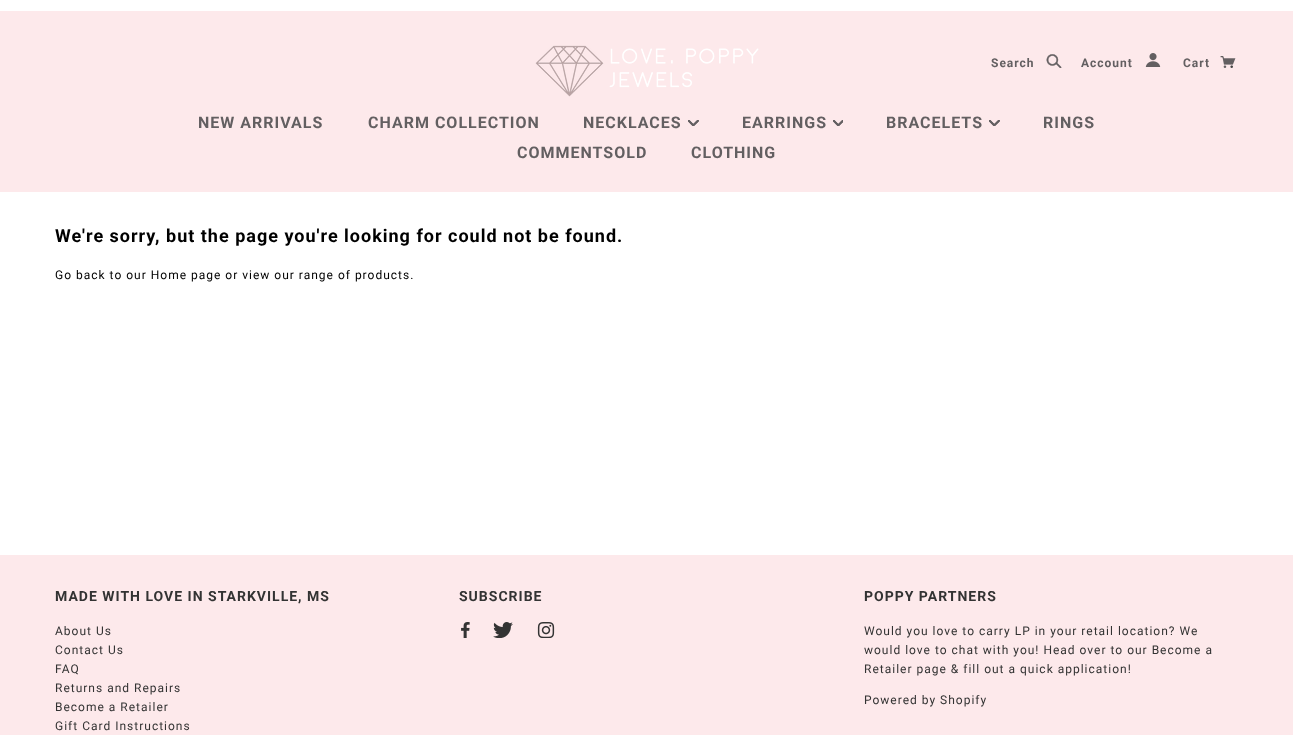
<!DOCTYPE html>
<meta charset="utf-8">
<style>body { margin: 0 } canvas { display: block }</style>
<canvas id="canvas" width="1293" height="735"></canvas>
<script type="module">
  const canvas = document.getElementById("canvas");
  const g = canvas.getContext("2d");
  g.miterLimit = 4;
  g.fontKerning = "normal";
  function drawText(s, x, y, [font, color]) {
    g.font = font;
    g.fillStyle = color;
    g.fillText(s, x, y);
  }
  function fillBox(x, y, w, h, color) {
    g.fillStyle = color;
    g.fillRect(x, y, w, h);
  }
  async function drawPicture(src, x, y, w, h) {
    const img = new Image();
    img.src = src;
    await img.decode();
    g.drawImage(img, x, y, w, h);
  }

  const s1 = ["bold 12px Roboto", "#635F61"];
  const s2 = ["bold 16px Roboto", "#635F61"];
  const s3 = ["bold 18px Roboto", "#000000"];
  const s4 = ["12px Roboto", "#000000"];
  const s5 = ["bold 14px Roboto", "#333333"];
  const s6 = ["12px Roboto", "#333333"];

  fillBox(0, 0, 1293, 735, "#FFFFFF");
  fillBox(0, 11, 1293, 181, "#FDE9EB");
  await drawPicture("pic1.png", 535, 45, 224, 52);
  g.letterSpacing = "1px";
  drawText("Search", 991, 67, s1);
  await drawPicture("pic2.png", 1046, 54, 16, 14);
  drawText("Account", 1081, 67, s1);
  await drawPicture("pic3.png", 1145, 53, 16, 14);
  drawText("Cart", 1183, 67, s1);
  await drawPicture("pic4.png", 1220, 56, 16, 12);
  drawText("NEW ARRIVALS", 198, 128, s2);
  drawText("CHARM COLLECTION", 368, 128, s2);
  drawText("NECKLACES", 583, 128, s2);
  await drawPicture("pic5.png", 688, 120, 11, 6);
  drawText("EARRINGS", 742, 128, s2);
  await drawPicture("pic6.png", 833, 120, 10, 6);
  drawText("BRACELETS", 886, 128, s2);
  await drawPicture("pic5.png", 989, 120, 11, 6);
  drawText("RINGS", 1043, 128, s2);
  drawText("COMMENTSOLD", 517, 158, s2);
  drawText("CLOTHING", 691, 158, s2);
  drawText("We're sorry, but the page you're looking for could not be found.", 55, 242, s3);
  drawText("Go back to our Home page or view our range of products.", 55, 279, s4);
  fillBox(0, 555, 1293, 180, "#FDE9EB");
  drawText("MADE WITH LOVE IN STARKVILLE, MS", 55, 601, s5);
  drawText("About Us", 55, 635, s6);
  drawText("Contact Us", 55, 654, s6);
  drawText("FAQ", 55, 673, s6);
  drawText("Returns and Repairs", 55, 692, s6);
  drawText("Become a Retailer", 55, 711, s6);
  drawText("Gift Card Instructions", 55, 730, s6);
  drawText("SUBSCRIBE", 459, 601, s5);
  await drawPicture("pic7.png", 461, 622, 9, 16);
  await drawPicture("pic8.png", 493, 622, 20, 16);
  await drawPicture("pic9.png", 537, 622, 18, 16);
  drawText("POPPY PARTNERS", 864, 601, s5);
  drawText("Would you love to carry LP in your retail location? We", 864, 635, s6);
  drawText("would love to chat with you! Head over to our Become a", 864, 654, s6);
  drawText("Retailer page & fill out a quick application!", 864, 673, s6);
  drawText("Powered by Shopify", 864, 704, s6);
</script>
